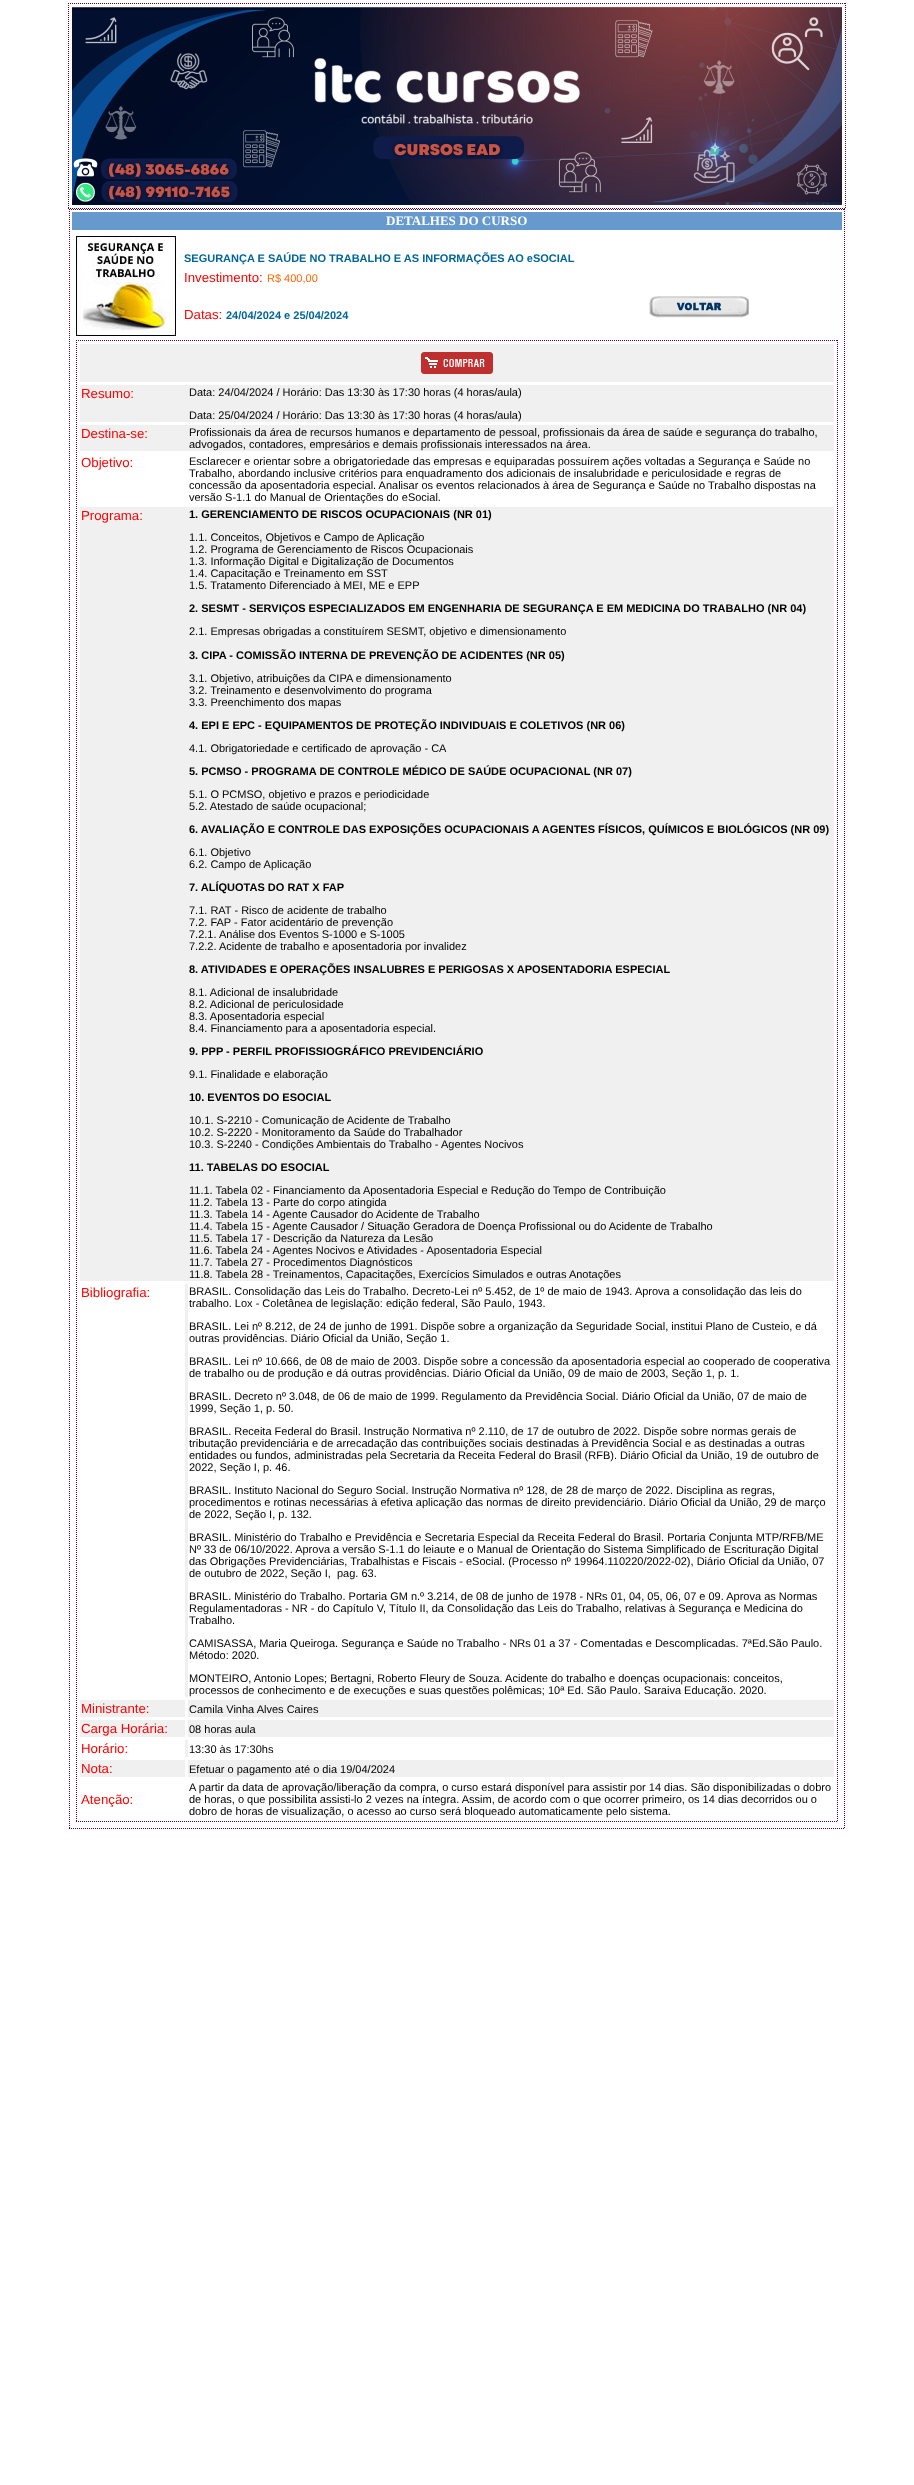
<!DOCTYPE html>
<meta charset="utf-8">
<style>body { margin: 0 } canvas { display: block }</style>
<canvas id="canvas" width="914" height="2485"></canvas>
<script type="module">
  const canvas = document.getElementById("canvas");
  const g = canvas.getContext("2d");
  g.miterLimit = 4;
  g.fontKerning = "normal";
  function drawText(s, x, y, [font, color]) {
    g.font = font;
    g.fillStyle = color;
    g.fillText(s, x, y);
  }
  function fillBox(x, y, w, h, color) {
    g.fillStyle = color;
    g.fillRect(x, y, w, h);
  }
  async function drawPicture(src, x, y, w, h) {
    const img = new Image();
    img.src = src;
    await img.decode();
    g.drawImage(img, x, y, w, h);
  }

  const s1 = ["bold 13px Liberation Serif", "#FFFFFF"];
  const s2 = ["bold 11px Liberation Sans", "#006699"];
  const s3 = ["13.25px Liberation Sans", "#FF0000"];
  const s4 = ["11px Liberation Sans", "#FF6600"];
  const s5 = ["11px Liberation Sans", "#000000"];
  const s6 = ["bold 11px Liberation Sans", "#000000"];

  fillBox(0, 0, 914, 2485, "#FFFFFF");
  g.beginPath();
  g.moveTo(68, 3.5);
  g.lineTo(846, 3.5);
  g.strokeStyle = "#660033";
  g.setLineDash([1, 1]);
  g.stroke();
  g.beginPath();
  g.moveTo(845.5, 3);
  g.lineTo(845.5, 209);
  g.stroke();
  g.beginPath();
  g.moveTo(68, 208.5);
  g.lineTo(846, 208.5);
  g.stroke();
  g.beginPath();
  g.moveTo(68.5, 3);
  g.lineTo(68.5, 209);
  g.stroke();
  await drawPicture("pic1.png", 72, 7, 770, 198);
  g.beginPath();
  g.moveTo(69, 209.5);
  g.lineTo(845, 209.5);
  g.stroke();
  g.beginPath();
  g.moveTo(844.5, 209);
  g.lineTo(844.5, 1829);
  g.stroke();
  g.beginPath();
  g.moveTo(69, 1828.5);
  g.lineTo(845, 1828.5);
  g.stroke();
  g.beginPath();
  g.moveTo(69.5, 209);
  g.lineTo(69.5, 1829);
  g.stroke();
  fillBox(72, 212, 770, 18, "#6699CC");
  drawText("DETALHES DO CURSO", 386, 225, s1);
  await drawPicture("pic2.png", 76, 236, 100, 100);
  drawText("SEGURANÇA E SAÚDE NO TRABALHO E AS INFORMAÇÕES AO eSOCIAL", 184, 262, s2);
  drawText("Investimento:", 184, 282, s3);
  drawText("R$ 400,00", 267, 282, s4);
  drawText("Datas:", 184, 319, s3);
  drawText("24/04/2024 e 25/04/2024", 226, 319, s2);
  await drawPicture("pic3.png", 649, 296, 100, 22);
  g.beginPath();
  g.moveTo(76, 340.5);
  g.lineTo(838, 340.5);
  g.stroke();
  g.beginPath();
  g.moveTo(837.5, 340);
  g.lineTo(837.5, 1822);
  g.stroke();
  g.beginPath();
  g.moveTo(76, 1821.5);
  g.lineTo(838, 1821.5);
  g.stroke();
  g.beginPath();
  g.moveTo(76.5, 340);
  g.lineTo(76.5, 1822);
  g.stroke();
  fillBox(80, 344, 754, 38, "#F0F0F0");
  await drawPicture("pic4.png", 421, 352, 72, 22);
  fillBox(80, 385, 754, 37, "#F0F0F0");
  drawText("Resumo:", 81, 398, s3);
  drawText("Data: 24/04/2024 / Horário: Das 13:30 às 17:30 horas (4 horas/aula)", 189, 396, s5);
  drawText("Data: 25/04/2024 / Horário: Das 13:30 às 17:30 horas (4 horas/aula)", 189, 419, s5);
  fillBox(80, 425, 754, 26, "#F0F0F0");
  drawText("Destina-se:", 81, 438, s3);
  drawText("Profissionais da área de recursos humanos e departamento de pessoal, profissionais da área de saúde e segurança do trabalho,", 189, 436, s5);
  drawText("advogados, contadores, empresários e demais profissionais interessados na área.", 189, 448, s5);
  drawText("Objetivo:", 81, 467, s3);
  drawText("Esclarecer e orientar sobre a obrigatoriedade das empresas e equiparadas possuírem ações voltadas a Segurança e Saúde no", 189, 465, s5);
  drawText("Trabalho, abordando inclusive critérios para enquadramento dos adicionais de insalubridade e periculosidade e regras de", 189, 477, s5);
  drawText("concessão da aposentadoria especial. Analisar os eventos relacionados à área de Segurança e Saúde no Trabalho dispostas na", 189, 489, s5);
  drawText("versão S-1.1 do Manual de Orientações do eSocial.", 189, 501, s5);
  fillBox(80, 507, 754, 774, "#F0F0F0");
  drawText("Programa:", 81, 520, s3);
  drawText("1. GERENCIAMENTO DE RISCOS OCUPACIONAIS (NR 01)", 189, 518, s6);
  drawText("1.1. Conceitos, Objetivos e Campo de Aplicação", 189, 541, s5);
  drawText("1.2. Programa de Gerenciamento de Riscos Ocupacionais", 189, 553, s5);
  drawText("1.3. Informação Digital e Digitalização de Documentos", 189, 565, s5);
  drawText("1.4. Capacitação e Treinamento em SST", 189, 577, s5);
  drawText("1.5. Tratamento Diferenciado à MEI, ME e EPP", 189, 589, s5);
  drawText("2. SESMT - SERVIÇOS ESPECIALIZADOS EM ENGENHARIA DE SEGURANÇA E EM MEDICINA DO TRABALHO (NR 04)", 189, 612, s6);
  drawText("2.1. Empresas obrigadas a constituírem SESMT, objetivo e dimensionamento", 189, 635, s5);
  drawText("3. CIPA - COMISSÃO INTERNA DE PREVENÇÃO DE ACIDENTES (NR 05)", 189, 659, s6);
  drawText("3.1. Objetivo, atribuições da CIPA e dimensionamento", 189, 682, s5);
  drawText("3.2. Treinamento e desenvolvimento do programa", 189, 694, s5);
  drawText("3.3. Preenchimento dos mapas", 189, 706, s5);
  drawText("4. EPI E EPC - EQUIPAMENTOS DE PROTEÇÃO INDIVIDUAIS E COLETIVOS (NR 06)", 189, 729, s6);
  drawText("4.1. Obrigatoriedade e certificado de aprovação - CA", 189, 752, s5);
  drawText("5. PCMSO - PROGRAMA DE CONTROLE MÉDICO DE SAÚDE OCUPACIONAL (NR 07)", 189, 775, s6);
  drawText("5.1. O PCMSO, objetivo e prazos e periodicidade", 189, 798, s5);
  drawText("5.2. Atestado de saúde ocupacional;", 189, 810, s5);
  drawText("6. AVALIAÇÃO E CONTROLE DAS EXPOSIÇÕES OCUPACIONAIS A AGENTES FÍSICOS, QUÍMICOS E BIOLÓGICOS (NR 09)", 189, 833, s6);
  drawText("6.1. Objetivo", 189, 856, s5);
  drawText("6.2. Campo de Aplicação", 189, 868, s5);
  drawText("7. ALÍQUOTAS DO RAT X FAP", 189, 891, s6);
  drawText("7.1. RAT - Risco de acidente de trabalho", 189, 914, s5);
  drawText("7.2. FAP - Fator acidentário de prevenção", 189, 926, s5);
  drawText("7.2.1. Análise dos Eventos S-1000 e S-1005", 189, 938, s5);
  drawText("7.2.2. Acidente de trabalho e aposentadoria por invalidez", 189, 950, s5);
  drawText("8. ATIVIDADES E OPERAÇÕES INSALUBRES E PERIGOSAS X APOSENTADORIA ESPECIAL", 189, 973, s6);
  drawText("8.1. Adicional de insalubridade", 189, 996, s5);
  drawText("8.2. Adicional de periculosidade", 189, 1008, s5);
  drawText("8.3. Aposentadoria especial", 189, 1020, s5);
  drawText("8.4. Financiamento para a aposentadoria especial.", 189, 1032, s5);
  drawText("9. PPP - PERFIL PROFISSIOGRÁFICO PREVIDENCIÁRIO", 189, 1055, s6);
  drawText("9.1. Finalidade e elaboração", 189, 1078, s5);
  drawText("10. EVENTOS DO ESOCIAL", 189, 1101, s6);
  drawText("10.1. S-2210 - Comunicação de Acidente de Trabalho", 189, 1124, s5);
  drawText("10.2. S-2220 - Monitoramento da Saúde do Trabalhador", 189, 1136, s5);
  drawText("10.3. S-2240 - Condições Ambientais do Trabalho - Agentes Nocivos", 189, 1148, s5);
  drawText("11. TABELAS DO ESOCIAL", 189, 1171, s6);
  drawText("11.1. Tabela 02 - Financiamento da Aposentadoria Especial e Redução do Tempo de Contribuição", 189, 1194, s5);
  drawText("11.2. Tabela 13 - Parte do corpo atingida", 189, 1206, s5);
  drawText("11.3. Tabela 14 - Agente Causador do Acidente de Trabalho", 189, 1218, s5);
  drawText("11.4. Tabela 15 - Agente Causador / Situação Geradora de Doença Profissional ou do Acidente de Trabalho", 189, 1230, s5);
  drawText("11.5. Tabela 17 - Descrição da Natureza da Lesão", 189, 1242, s5);
  drawText("11.6. Tabela 24 - Agentes Nocivos e Atividades - Aposentadoria Especial", 189, 1254, s5);
  drawText("11.7. Tabela 27 - Procedimentos Diagnósticos", 189, 1266, s5);
  drawText("11.8. Tabela 28 - Treinamentos, Capacitações, Exercícios Simulados e outras Anotações", 189, 1278, s5);
  fillBox(185, 1284, 3, 413, "#F0F0F0");
  drawText("Bibliografia:", 81, 1297, s3);
  drawText("BRASIL. Consolidação das Leis do Trabalho. Decreto-Lei nº 5.452, de 1º de maio de 1943. Aprova a consolidação das leis do", 189, 1295, s5);
  drawText("trabalho. Lox - Coletânea de legislação: edição federal, São Paulo, 1943.", 189, 1307, s5);
  drawText("BRASIL. Lei nº 8.212, de 24 de junho de 1991. Dispõe sobre a organização da Seguridade Social, institui Plano de Custeio, e dá", 189, 1330, s5);
  drawText("outras providências. Diário Oficial da União, Seção 1.", 189, 1342, s5);
  drawText("BRASIL. Lei nº 10.666, de 08 de maio de 2003. Dispõe sobre a concessão da aposentadoria especial ao cooperado de cooperativa", 189, 1365, s5);
  drawText("de trabalho ou de produção e dá outras providências. Diário Oficial da União, 09 de maio de 2003, Seção 1, p. 1.", 189, 1377, s5);
  drawText("BRASIL. Decreto nº 3.048, de 06 de maio de 1999. Regulamento da Previdência Social. Diário Oficial da União, 07 de maio de", 189, 1400, s5);
  drawText("1999, Seção 1, p. 50.", 189, 1412, s5);
  drawText("BRASIL. Receita Federal do Brasil. Instrução Normativa nº 2.110, de 17 de outubro de 2022. Dispõe sobre normas gerais de", 189, 1435, s5);
  drawText("tributação previdenciária e de arrecadação das contribuições sociais destinadas à Previdência Social e as destinadas a outras", 189, 1447, s5);
  drawText("entidades ou fundos, administradas pela Secretaria da Receita Federal do Brasil (RFB). Diário Oficial da União, 19 de outubro de", 189, 1459, s5);
  drawText("2022, Seção I, p. 46.", 189, 1471, s5);
  drawText("BRASIL. Instituto Nacional do Seguro Social. Instrução Normativa nº 128, de 28 de março de 2022. Disciplina as regras,", 189, 1494, s5);
  drawText("procedimentos e rotinas necessárias à efetiva aplicação das normas de direito previdenciário. Diário Oficial da União, 29 de março", 189, 1506, s5);
  drawText("de 2022, Seção I, p. 132.", 189, 1518, s5);
  drawText("BRASIL. Ministério do Trabalho e Previdência e Secretaria Especial da Receita Federal do Brasil. Portaria Conjunta MTP/RFB/ME", 189, 1541, s5);
  drawText("Nº 33 de 06/10/2022. Aprova a versão S-1.1 do leiaute e o Manual de Orientação do Sistema Simplificado de Escrituração Digital", 189, 1553, s5);
  drawText("das Obrigações Previdenciárias, Trabalhistas e Fiscais - eSocial. (Processo nº 19964.110220/2022-02), Diário Oficial da União, 07", 189, 1565, s5);
  drawText("de outubro de 2022, Seção I,  pag. 63.", 189, 1577, s5);
  drawText("BRASIL. Ministério do Trabalho. Portaria GM n.º 3.214, de 08 de junho de 1978 - NRs 01, 04, 05, 06, 07 e 09. Aprova as Normas", 189, 1600, s5);
  drawText("Regulamentadoras - NR - do Capítulo V, Título II, da Consolidação das Leis do Trabalho, relativas à Segurança e Medicina do", 189, 1612, s5);
  drawText("Trabalho.", 189, 1624, s5);
  drawText("CAMISASSA, Maria Queiroga. Segurança e Saúde no Trabalho - NRs 01 a 37 - Comentadas e Descomplicadas. 7ªEd.São Paulo.", 189, 1647, s5);
  drawText("Método: 2020.", 189, 1659, s5);
  drawText("MONTEIRO, Antonio Lopes; Bertagni, Roberto Fleury de Souza. Acidente do trabalho e doenças ocupacionais: conceitos,", 189, 1682, s5);
  drawText("processos de conhecimento e de execuções e suas questões polêmicas; 10ª Ed. São Paulo. Saraiva Educação. 2020.", 189, 1694, s5);
  fillBox(80, 1700, 105, 17, "#F0F0F0");
  drawText("Ministrante:", 81, 1713, s3);
  fillBox(188, 1700, 646, 17, "#F0F0F0");
  drawText("Camila Vinha Alves Caires", 189, 1713, s5);
  fillBox(80, 1720, 105, 17, "#F0F0F0");
  drawText("Carga Horária:", 81, 1733, s3);
  fillBox(188, 1720, 646, 17, "#F0F0F0");
  drawText("08 horas aula", 189, 1733, s5);
  fillBox(185, 1740, 3, 17, "#F0F0F0");
  drawText("Horário:", 81, 1753, s3);
  drawText("13:30 às 17:30hs", 189, 1753, s5);
  fillBox(80, 1760, 105, 17, "#F0F0F0");
  drawText("Nota:", 81, 1773, s3);
  fillBox(188, 1760, 646, 17, "#F0F0F0");
  drawText("Efetuar o pagamento até o dia 19/04/2024", 189, 1773, s5);
  drawText("Atenção:", 81, 1804, s3);
  drawText("A partir da data de aprovação/liberação da compra, o curso estará disponível para assistir por 14 dias. São disponibilizadas o dobro", 189, 1791, s5);
  drawText("de horas, o que possibilita assisti-lo 2 vezes na íntegra. Assim, de acordo com o que ocorrer primeiro, os 14 dias decorridos ou o", 189, 1803, s5);
  drawText("dobro de horas de visualização, o acesso ao curso será bloqueado automaticamente pelo sistema.", 189, 1815, s5);
</script>
